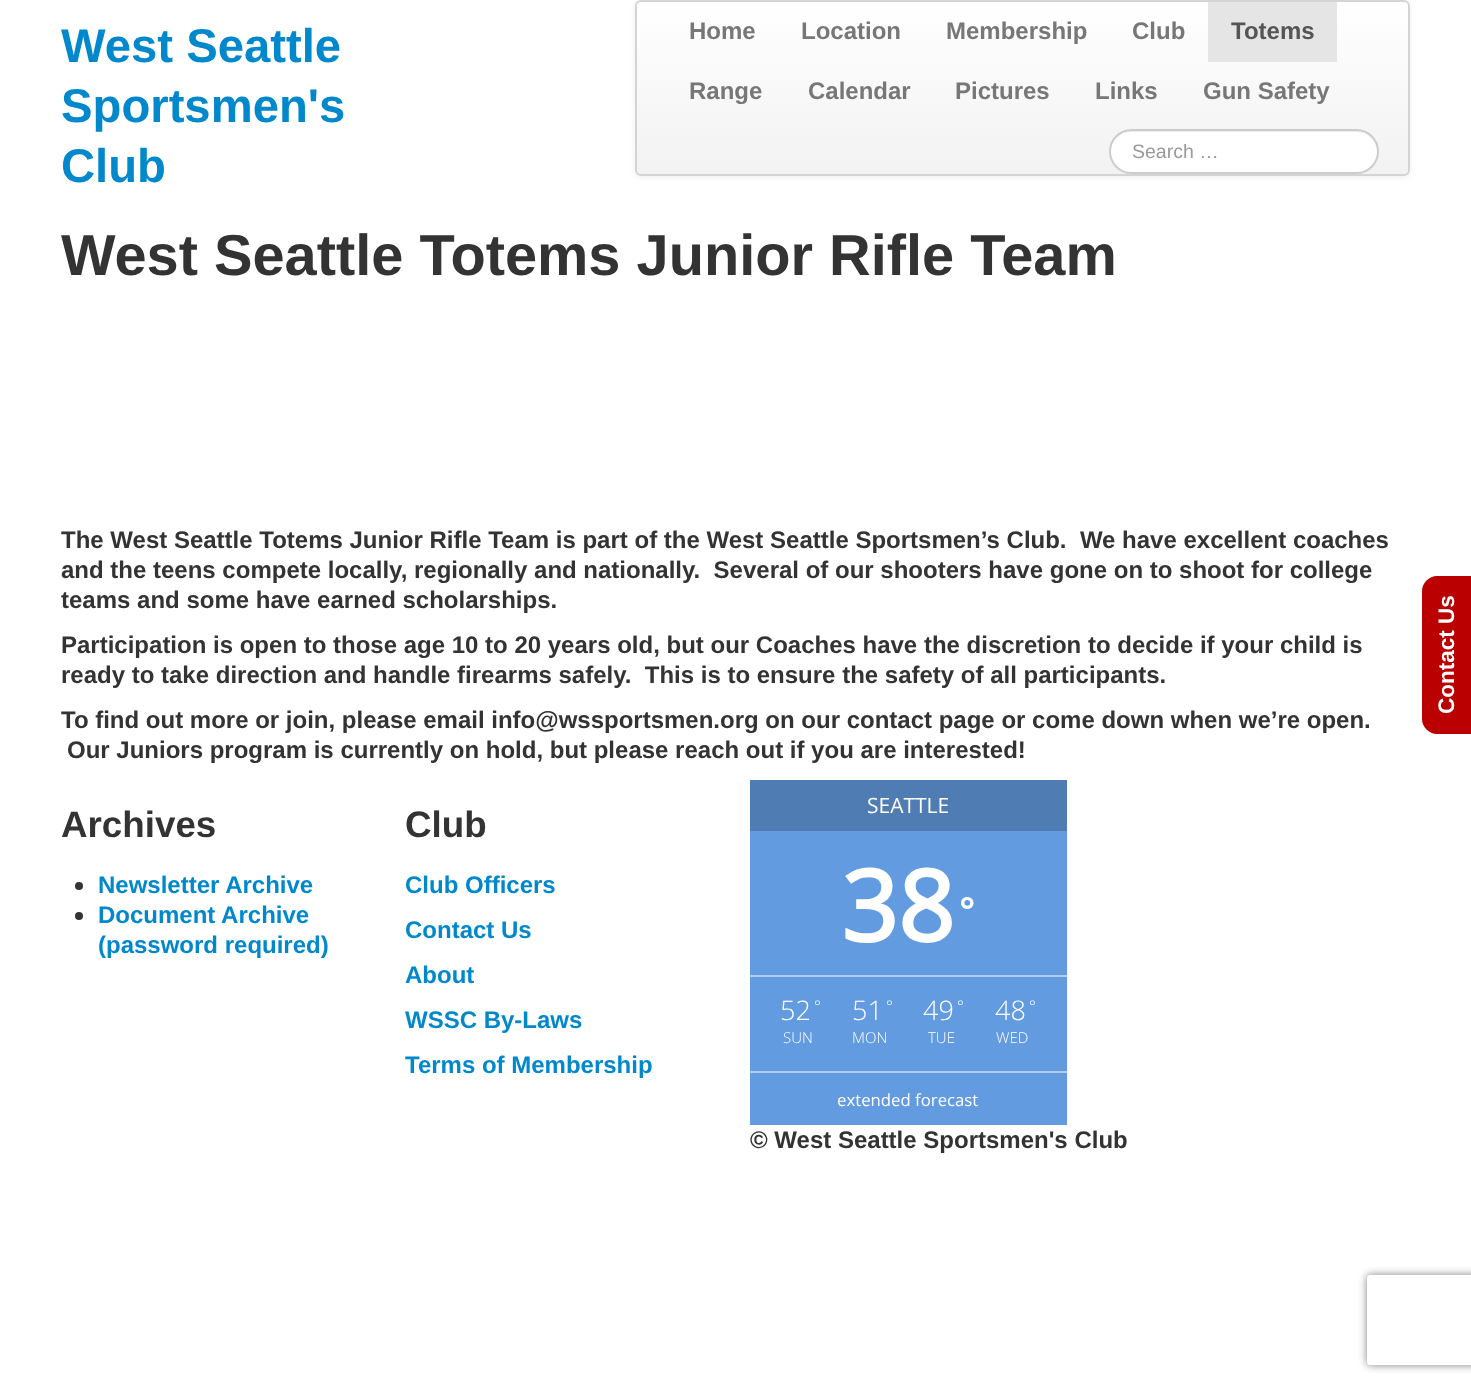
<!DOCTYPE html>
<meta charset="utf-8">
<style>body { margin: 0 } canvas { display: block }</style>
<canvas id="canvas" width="1471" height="1385"></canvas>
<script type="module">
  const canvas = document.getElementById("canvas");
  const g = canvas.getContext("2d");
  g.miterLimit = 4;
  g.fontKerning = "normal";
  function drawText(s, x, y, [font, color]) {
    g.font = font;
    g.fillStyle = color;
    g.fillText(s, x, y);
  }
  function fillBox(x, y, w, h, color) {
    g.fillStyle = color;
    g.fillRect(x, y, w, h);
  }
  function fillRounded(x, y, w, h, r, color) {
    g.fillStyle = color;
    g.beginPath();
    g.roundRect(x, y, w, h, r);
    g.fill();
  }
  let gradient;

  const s1 = ["bold 47.25px Liberation Sans", "#0088CC"];
  const s2 = ["bold 24px Liberation Sans", "#777777"];
  const s3 = ["bold 24px Liberation Sans", "#555555"];
  const s4 = ["19.5px Liberation Sans", "#999999"];
  const s5 = ["bold 57.75px Liberation Sans", "#333333"];
  const s6 = ["bold 24px Liberation Sans", "#333333"];
  const s7 = ["bold 36.75px Liberation Sans", "#333333"];
  const s8 = ["bold 24px Liberation Sans", "#0088CC"];
  const s9 = ["21px Open Sans", "#FFFFFF"];
  const s10 = ["bold 99px Open Sans", "#FFFFFF"];
  const s11 = ["bold 36px Open Sans", "#FFFFFF"];
  const s12 = ["300 27px Open Sans", "#FFFFFF"];
  const s13 = ["300 16px Open Sans", "#FFFFFF"];
  const s14 = ["300 15px Open Sans", "#FFFFFF"];
  const s15 = ["16.75px Open Sans", "#FFFFFF"];

  fillBox(0, 0, 1471, 1385, "#FFFFFF");
  drawText("West Seattle", 61, 62, s1);
  drawText("Sportsmen's", 61, 122, s1);
  drawText("Club", 61, 182, s1);
  g.fillStyle = "rgba(0, 0, 0, 0.07)";
  g.filter = "blur(3px)";
  g.beginPath();
  g.roundRect(635, 2, 775, 175, 6);
  g.fill();
  g.filter = "none";
  g.save();
  g.beginPath();
  g.roundRect(635, 0, 775, 176, 6);
  g.clip();
  gradient = g.createLinearGradient(1022, 1.5, 1022, 174);
  gradient.addColorStop(0, "#FFFFFF");
  gradient.addColorStop(1, "#F2F2F2");
  g.fillStyle = gradient;
  g.fillRect(635, 2, 775, 172);
  g.restore();
  g.beginPath();
  g.roundRect(636, 1, 773, 174, 5);
  g.strokeStyle = "#D4D4D4";
  g.lineWidth = 2;
  g.stroke();
  drawText("Home", 689, 39, s2);
  drawText("Location", 801, 39, s2);
  drawText("Membership", 946, 39, s2);
  drawText("Club", 1132, 39, s2);
  fillBox(1208, 2, 129, 60, "#E5E5E5");
  drawText("Totems", 1231, 39, s3);
  drawText("Range", 689, 99, s2);
  drawText("Calendar", 808, 99, s2);
  drawText("Pictures", 955, 99, s2);
  drawText("Links", 1095, 99, s2);
  drawText("Gun Safety", 1203, 99, s2);
  fillRounded(1109, 129, 270, 45, 22.5, "#FFFFFF");
  g.fillStyle = "#ECECEC";
  g.beginPath();
  g.moveTo(1131, 132);
  g.lineTo(1356, 132);
  g.bezierCurveTo(1368, 132, 1377, 141, 1377, 152);
  g.bezierCurveTo(1378, 123, 1334, 131, 1318, 131);
  g.lineTo(1168, 131);
  g.bezierCurveTo(1153, 131, 1109, 123, 1110, 152);
  g.bezierCurveTo(1110, 141, 1119, 132, 1131, 132);
  g.closePath();
  g.fill();
  g.beginPath();
  g.roundRect(1110, 130, 268, 43, 21.5);
  g.strokeStyle = "#CCCCCC";
  g.stroke();
  drawText("Search …", 1132, 158, s4);
  drawText("West Seattle Totems Junior Rifle Team", 61, 275, s5);
  drawText("The West Seattle Totems Junior Rifle Team is part of the West Seattle Sportsmen’s Club.  We have excellent coaches", 61, 548, s6);
  drawText("and the teens compete locally, regionally and nationally.  Several of our shooters have gone on to shoot for college", 61, 578, s6);
  drawText("teams and some have earned scholarships.", 61, 608, s6);
  drawText("Participation is open to those age 10 to 20 years old, but our Coaches have the discretion to decide if your child is", 61, 653, s6);
  drawText("ready to take direction and handle firearms safely.  This is to ensure the safety of all participants.", 61, 683, s6);
  drawText("To find out more or join, please email info@wssportsmen.org on our contact page or come down when we’re open.", 61, 728, s6);
  drawText("Our Juniors program is currently on hold, but please reach out if you are interested!", 67, 758, s6);
  g.fillStyle = "#BA0000";
  g.beginPath();
  g.moveTo(1422, 719);
  g.lineTo(1422, 591);
  g.bezierCurveTo(1422, 583, 1429, 576, 1437, 576);
  g.lineTo(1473, 576);
  g.lineTo(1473, 734);
  g.lineTo(1437, 734);
  g.bezierCurveTo(1429, 734, 1422, 727, 1422, 719);
  g.closePath();
  g.fill();
  g.font = "bold 22.5px Liberation Sans";
  g.fillStyle = "#FFFFFF";
  g.save();
  g.translate(1454, 714);
  g.rotate(-90 * Math.PI / 180);
  g.fillText("Contact Us", 0, 0);
  g.restore();
  drawText("Archives", 61, 837, s7);
  g.beginPath();
  g.arc(79, 886, 4, 0, Math.PI * 2);
  g.fill();
  drawText("Newsletter Archive", 98, 893, s8);
  g.fillStyle = "#333333";
  g.beginPath();
  g.arc(79, 916, 4, 0, Math.PI * 2);
  g.fill();
  drawText("Document Archive", 98, 923, s8);
  drawText("(password required)", 98, 953, s8);
  drawText("Club", 405, 837, s7);
  drawText("Club Officers", 405, 893, s8);
  drawText("Contact Us", 405, 938, s8);
  drawText("About", 405, 983, s8);
  drawText("WSSC By-Laws", 405, 1028, s8);
  drawText("Terms of Membership", 405, 1073, s8);
  fillBox(750, 831, 317, 294, "#629BE0");
  fillBox(750, 780, 317, 51, "#4E7CB3");
  drawText("SEATTLE", 867, 813, s9);
  drawText("38", 841, 942, s10);
  drawText("°", 959, 924, s11);
  fillBox(750, 975, 317, 2, "#B1CDF0");
  drawText("52", 780, 1020, s12);
  drawText("°", 814, 1012, s13);
  drawText("SUN", 783, 1043, s14);
  drawText("51", 852, 1020, s12);
  drawText("°", 886, 1012, s13);
  drawText("MON", 852, 1043, s14);
  drawText("49", 923, 1020, s12);
  drawText("°", 957, 1012, s13);
  drawText("TUE", 928, 1043, s14);
  drawText("48", 995, 1020, s12);
  drawText("°", 1029, 1012, s13);
  drawText("WED", 996, 1043, s14);
  fillBox(750, 1071, 317, 2, "#B1CDF0");
  drawText("extended forecast", 837, 1106, s15);
  drawText("© West Seattle Sportsmen's Club", 750, 1148, s6);
  g.save();
  g.beginPath();
  g.moveTo(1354, 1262);
  g.lineTo(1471, 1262);
  g.lineTo(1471, 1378);
  g.lineTo(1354, 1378);
  g.closePath();
  g.moveTo(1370, 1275);
  g.lineTo(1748, 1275);
  g.bezierCurveTo(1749.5, 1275, 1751, 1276.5, 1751, 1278);
  g.lineTo(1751, 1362);
  g.bezierCurveTo(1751, 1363.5, 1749.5, 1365, 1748, 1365);
  g.lineTo(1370, 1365);
  g.bezierCurveTo(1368.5, 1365, 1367, 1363.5, 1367, 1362);
  g.lineTo(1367, 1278);
  g.bezierCurveTo(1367, 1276.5, 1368.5, 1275, 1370, 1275);
  g.closePath();
  g.clip("evenodd");
  g.fillStyle = "#808080";
  g.filter = "blur(4px)";
  g.beginPath();
  g.roundRect(1367, 1275, 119, 90, 3);
  g.fill();
  g.filter = "none";
  g.restore();
</script>
